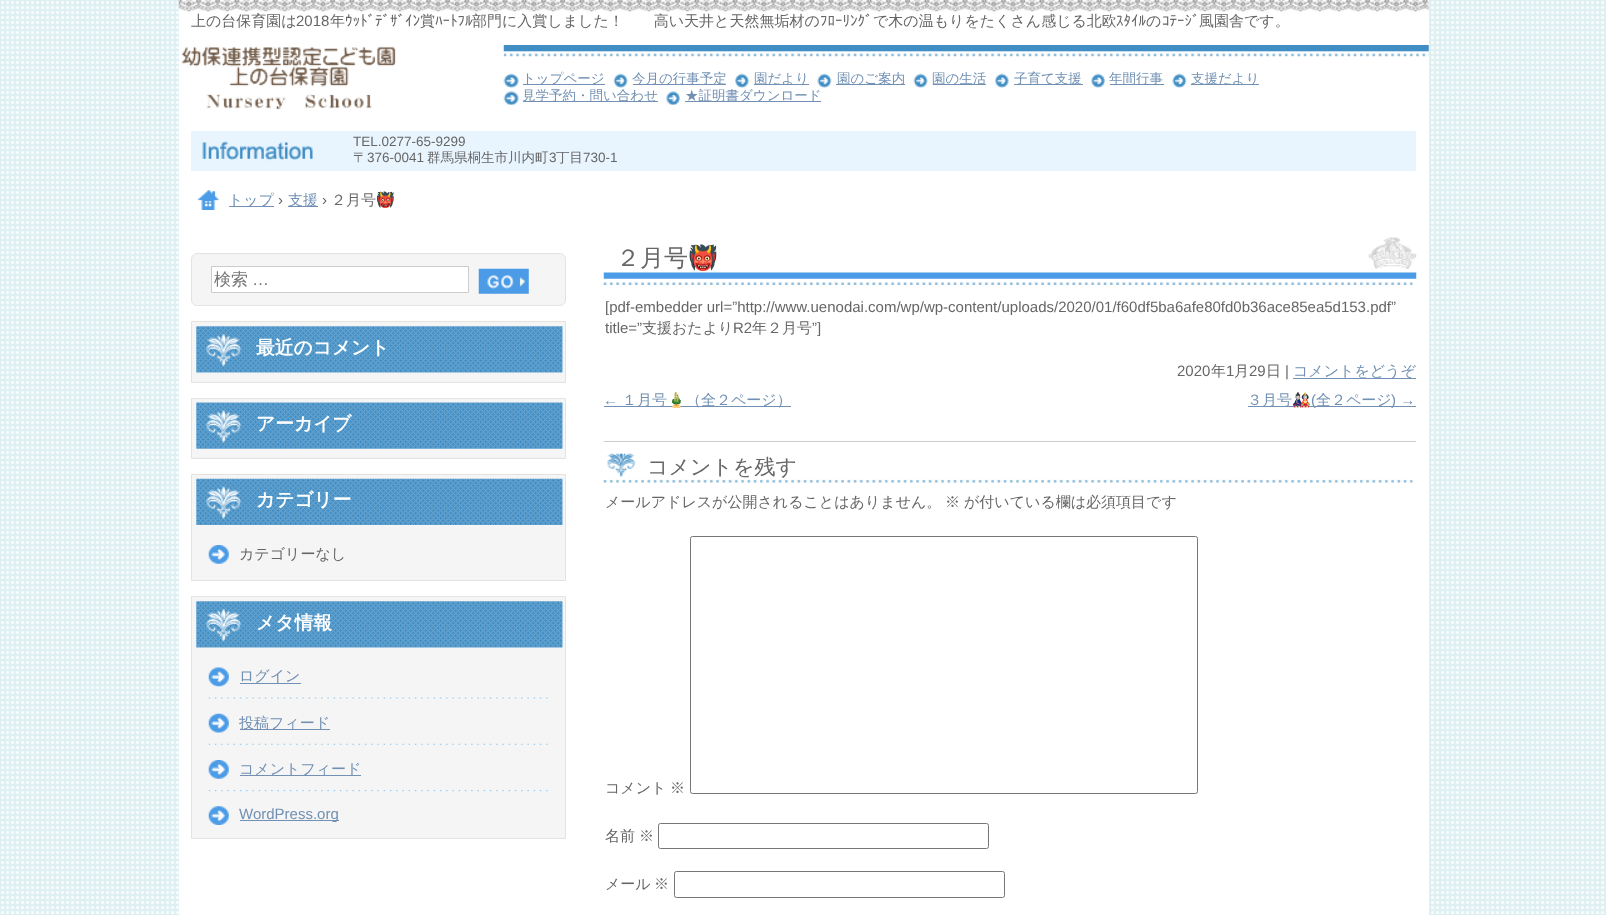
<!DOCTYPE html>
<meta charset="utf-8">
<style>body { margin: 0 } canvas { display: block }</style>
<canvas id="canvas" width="1606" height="915"></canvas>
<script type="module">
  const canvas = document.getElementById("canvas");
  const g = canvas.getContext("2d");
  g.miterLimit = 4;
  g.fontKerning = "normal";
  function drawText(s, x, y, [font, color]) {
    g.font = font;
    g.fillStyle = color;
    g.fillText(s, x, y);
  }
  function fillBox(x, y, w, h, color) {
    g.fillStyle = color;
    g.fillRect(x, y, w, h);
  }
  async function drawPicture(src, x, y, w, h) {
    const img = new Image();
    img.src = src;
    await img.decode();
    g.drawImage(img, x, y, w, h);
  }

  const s1 = ["500 15px WenQuanYi Zen Hei", "#666666"];
  const s2 = ["15px Liberation Sans", "#666666"];
  const s3 = ["15px IPAPGothic", "#666666"];
  const s4 = ["500 13.5px WenQuanYi Zen Hei", "#7190B3"];
  const s5 = ["13.5px Liberation Sans", "#666666"];
  const s6 = ["500 13.5px WenQuanYi Zen Hei", "#666666"];
  const s7 = ["500 15px WenQuanYi Zen Hei", "#7190B3"];
  const s8 = ["15px Noto Color Emoji", "#666666"];
  const s9 = ["500 17px WenQuanYi Zen Hei", "#757575"];
  const s10 = ["17px Liberation Sans", "#757575"];
  const s11 = ["bold 18.75px WenQuanYi Zen Hei", "#FFFFFF"];
  const s12 = ["15px Liberation Sans", "#7190B3"];
  const s13 = ["500 24px WenQuanYi Zen Hei", "#666666"];
  const s14 = ["24px Noto Color Emoji", "#666666"];
  const s15 = ["15px Noto Color Emoji", "#7190B3"];
  const s16 = ["500 21px WenQuanYi Zen Hei", "#666666"];

  fillBox(0, 0, 1606, 915, "#FFFFFF");
  await drawPicture("pic1.png", 0, 0, 1606, 915);
  fillBox(179, 0, 1250, 915, "#FFFFFF");
  await drawPicture("pic2.png", 178, 0, 1251, 12);
  drawText("上の台保育園は", 191, 26, s1);
  drawText("2018", 296, 26, s2);
  drawText("年", 330, 26, s1);
  drawText("ｳｯﾄﾞﾃﾞｻﾞｲﾝ", 345, 26, s3);
  drawText("賞", 420, 26, s1);
  drawText("ﾊｰﾄﾌﾙ", 435, 26, s3);
  drawText("部門に入賞しました！　　高い天井と天然無垢材の", 472, 26, s1);
  drawText("ﾌﾛｰﾘﾝｸﾞ", 820, 26, s3);
  drawText("で木の温もりをたくさん感じる北欧", 873, 26, s1);
  drawText("ｽﾀｲﾙ", 1116, 26, s3);
  drawText("の", 1146, 26, s1);
  drawText("ｺﾃｰｼﾞ", 1162, 26, s3);
  drawText("風園舎です。", 1199, 26, s1);
  await drawPicture("pic3.png", 181, 46, 215, 64);
  await drawPicture("pic4.png", 503, 45, 926, 12);
  await drawPicture("pic5.png", 503, 73, 16, 15);
  fillBox(523, 84, 82, 1, "#7190B3");
  drawText("トップページ", 522, 83, s4);
  await drawPicture("pic6.png", 613, 73, 15, 15);
  fillBox(633, 84, 93, 1, "#7190B3");
  drawText("今月の行事予定", 632, 83, s4);
  await drawPicture("pic7.png", 735, 73, 14, 15);
  fillBox(754, 84, 55, 1, "#7190B3");
  drawText("園だより", 754, 83, s4);
  await drawPicture("pic8.png", 817, 73, 15, 15);
  fillBox(836, 84, 69, 1, "#7190B3");
  drawText("園のご案内", 837, 83, s4);
  await drawPicture("pic9.png", 913, 73, 15, 15);
  fillBox(933, 84, 53, 1, "#7190B3");
  drawText("園の生活", 932, 83, s4);
  await drawPicture("pic7.png", 995, 73, 14, 15);
  fillBox(1014, 84, 69, 1, "#7190B3");
  drawText("子育て支援", 1014, 83, s4);
  await drawPicture("pic10.png", 1091, 73, 14, 15);
  fillBox(1110, 84, 54, 1, "#7190B3");
  drawText("年間行事", 1109, 83, s4);
  await drawPicture("pic8.png", 1172, 73, 15, 15);
  fillBox(1191, 84, 68, 1, "#7190B3");
  drawText("支援だより", 1191, 83, s4);
  await drawPicture("pic11.png", 503, 91, 16, 14);
  fillBox(523, 101, 135, 1, "#7190B3");
  drawText("見学予約・問い合わせ", 522, 100, s4);
  await drawPicture("pic12.png", 666, 91, 14, 14);
  fillBox(685, 101, 136, 1, "#7190B3");
  drawText("★証明書ダウンロード", 685, 100, s4);
  fillBox(191, 131, 1225, 40, "#E8F5FF");
  await drawPicture("pic13.png", 202, 141, 111, 20);
  drawText("TEL.0277-65-9299", 353, 146, s5);
  drawText("〒", 353, 162, s6);
  drawText("376-0041", 367, 162, s5);
  drawText("群馬県桐生市川内町", 427, 162, s6);
  drawText("3", 549, 162, s5);
  drawText("丁目", 556, 162, s6);
  drawText("730-1", 583, 162, s5);
  await drawPicture("pic14.png", 197, 190, 22, 20);
  fillBox(229, 206, 45, 1, "#7190B3");
  drawText("トップ", 228, 205, s7);
  drawText("›", 278, 205, s2);
  fillBox(288, 206, 30, 1, "#7190B3");
  drawText("支援", 288, 205, s7);
  drawText("›", 322, 205, s2);
  drawText("２月号", 331, 205, s1);
  drawText("👹", 376, 205, s8);
  g.fillStyle = "#F5F5F5";
  g.beginPath();
  g.roundRect(191.5, 253.5, 374, 52, 5.5);
  g.fill();
  g.strokeStyle = "#E8E2DF";
  g.stroke();
  g.fillStyle = "#FFFFFF";
  g.beginPath();
  g.rect(211.5, 266.5, 257, 26);
  g.fill();
  g.strokeStyle = "#CCCCCC";
  g.stroke();
  drawText("検索", 214, 285, s9);
  drawText("…", 252, 285, s10);
  fillBox(479, 269, 50, 25, "#EFEFEF");
  await drawPicture("pic15.png", 478, 268, 51, 26);
  g.fillStyle = "#F5F5F5";
  g.beginPath();
  g.rect(191.5, 321.5, 374, 61);
  g.fill();
  g.strokeStyle = "#E8E2DF";
  g.stroke();
  await drawPicture("pic16.png", 196, 326, 367, 47);
  drawText("最近のコメント", 256, 354, s11);
  g.fillStyle = "#F5F5F5";
  g.beginPath();
  g.rect(191.5, 398.5, 374, 60);
  g.fill();
  g.stroke();
  await drawPicture("pic17.png", 196, 402, 367, 47);
  drawText("アーカイブ", 256, 430, s11);
  g.fillStyle = "#F5F5F5";
  g.beginPath();
  g.rect(191.5, 474.5, 374, 106);
  g.fill();
  g.stroke();
  await drawPicture("pic18.png", 196, 478, 367, 47);
  drawText("カテゴリー", 256, 506, s11);
  await drawPicture("pic19.png", 208, 545, 21, 19);
  drawText("カテゴリーなし", 239, 559, s1);
  g.fillStyle = "#F5F5F5";
  g.beginPath();
  g.rect(191.5, 596.5, 374, 242);
  g.fill();
  g.stroke();
  await drawPicture("pic16.png", 196, 601, 367, 47);
  drawText("メタ情報", 256, 629, s11);
  await drawPicture("pic20.png", 208, 667, 340, 33);
  drawText("ログイン", 239, 681, s7);
  fillBox(240, 683, 61, 1, "#7190B3");
  await drawPicture("pic21.png", 208, 713, 340, 33);
  fillBox(240, 729, 90, 1, "#7190B3");
  drawText("投稿フィード", 239, 728, s7);
  await drawPicture("pic22.png", 208, 760, 340, 33);
  fillBox(240, 775, 121, 1, "#7190B3");
  drawText("コメントフィード", 239, 774, s7);
  await drawPicture("pic23.png", 208, 806, 21, 19);
  fillBox(240, 820, 99, 1, "#7190B3");
  drawText("WordPress.org", 239, 819, s12);
  await drawPicture("pic24.png", 603, 237, 814, 48);
  drawText("２月号", 616, 266, s13);
  drawText("👹", 688, 266, s14);
  drawText("[pdf-embedder url=”http://www.uenodai.com/wp/wp-content/uploads/2020/01/f60df5ba6afe80fd0b36ace85ea5d153.pdf”", 605, 312, s2);
  drawText("title=”", 605, 333, s2);
  drawText("支援おたより", 642, 333, s1);
  drawText("R2", 733, 333, s2);
  drawText("年２月号", 752, 333, s1);
  drawText("”]", 812, 333, s2);
  drawText("2020", 1177, 376, s2);
  drawText("年", 1211, 376, s1);
  drawText("1", 1226, 376, s2);
  drawText("月", 1234, 376, s1);
  drawText("29", 1249, 376, s2);
  drawText("日", 1266, 376, s1);
  drawText("|", 1285, 376, s2);
  fillBox(1293, 378, 123, 1, "#7190B3");
  drawText("コメントをどうぞ", 1293, 376, s7);
  fillBox(604, 441, 812, 1, "#CCCCCC");
  drawText("←", 603, 405, s12);
  fillBox(604, 406, 187, 1, "#7190B3");
  drawText("１月号", 622, 405, s7);
  drawText("🎍", 667, 405, s15);
  drawText("（全２ページ）", 686, 405, s7);
  fillBox(1248, 406, 168, 1, "#7190B3");
  drawText("３月号", 1247, 405, s7);
  drawText("🎎", 1292, 405, s15);
  drawText("(", 1311, 405, s12);
  drawText("全２ページ", 1316, 405, s7);
  drawText(") →", 1391, 405, s12);
  await drawPicture("pic25.png", 603, 453, 810, 30);
  drawText("コメントを残す", 647, 474, s16);
  drawText("メールアドレスが公開されることはありません。", 605, 507, s1);
  drawText("※", 945, 507, s1);
  drawText("が付いている欄は必須項目です", 964, 507, s1);
  drawText("コメント", 605, 793, s1);
  drawText("※", 670, 793, s1);
  g.beginPath();
  g.roundRect(690.5, 536.5, 507, 257, 2);
  g.strokeStyle = "#767676";
  g.stroke();
  drawText("名前", 605, 841, s1);
  drawText("※", 639, 841, s1);
  g.beginPath();
  g.roundRect(658.5, 823.5, 330, 25, 2);
  g.stroke();
  drawText("メール", 605, 889, s1);
  drawText("※", 654, 889, s1);
  g.beginPath();
  g.roundRect(674.5, 871.5, 330, 26, 2);
  g.stroke();
</script>
